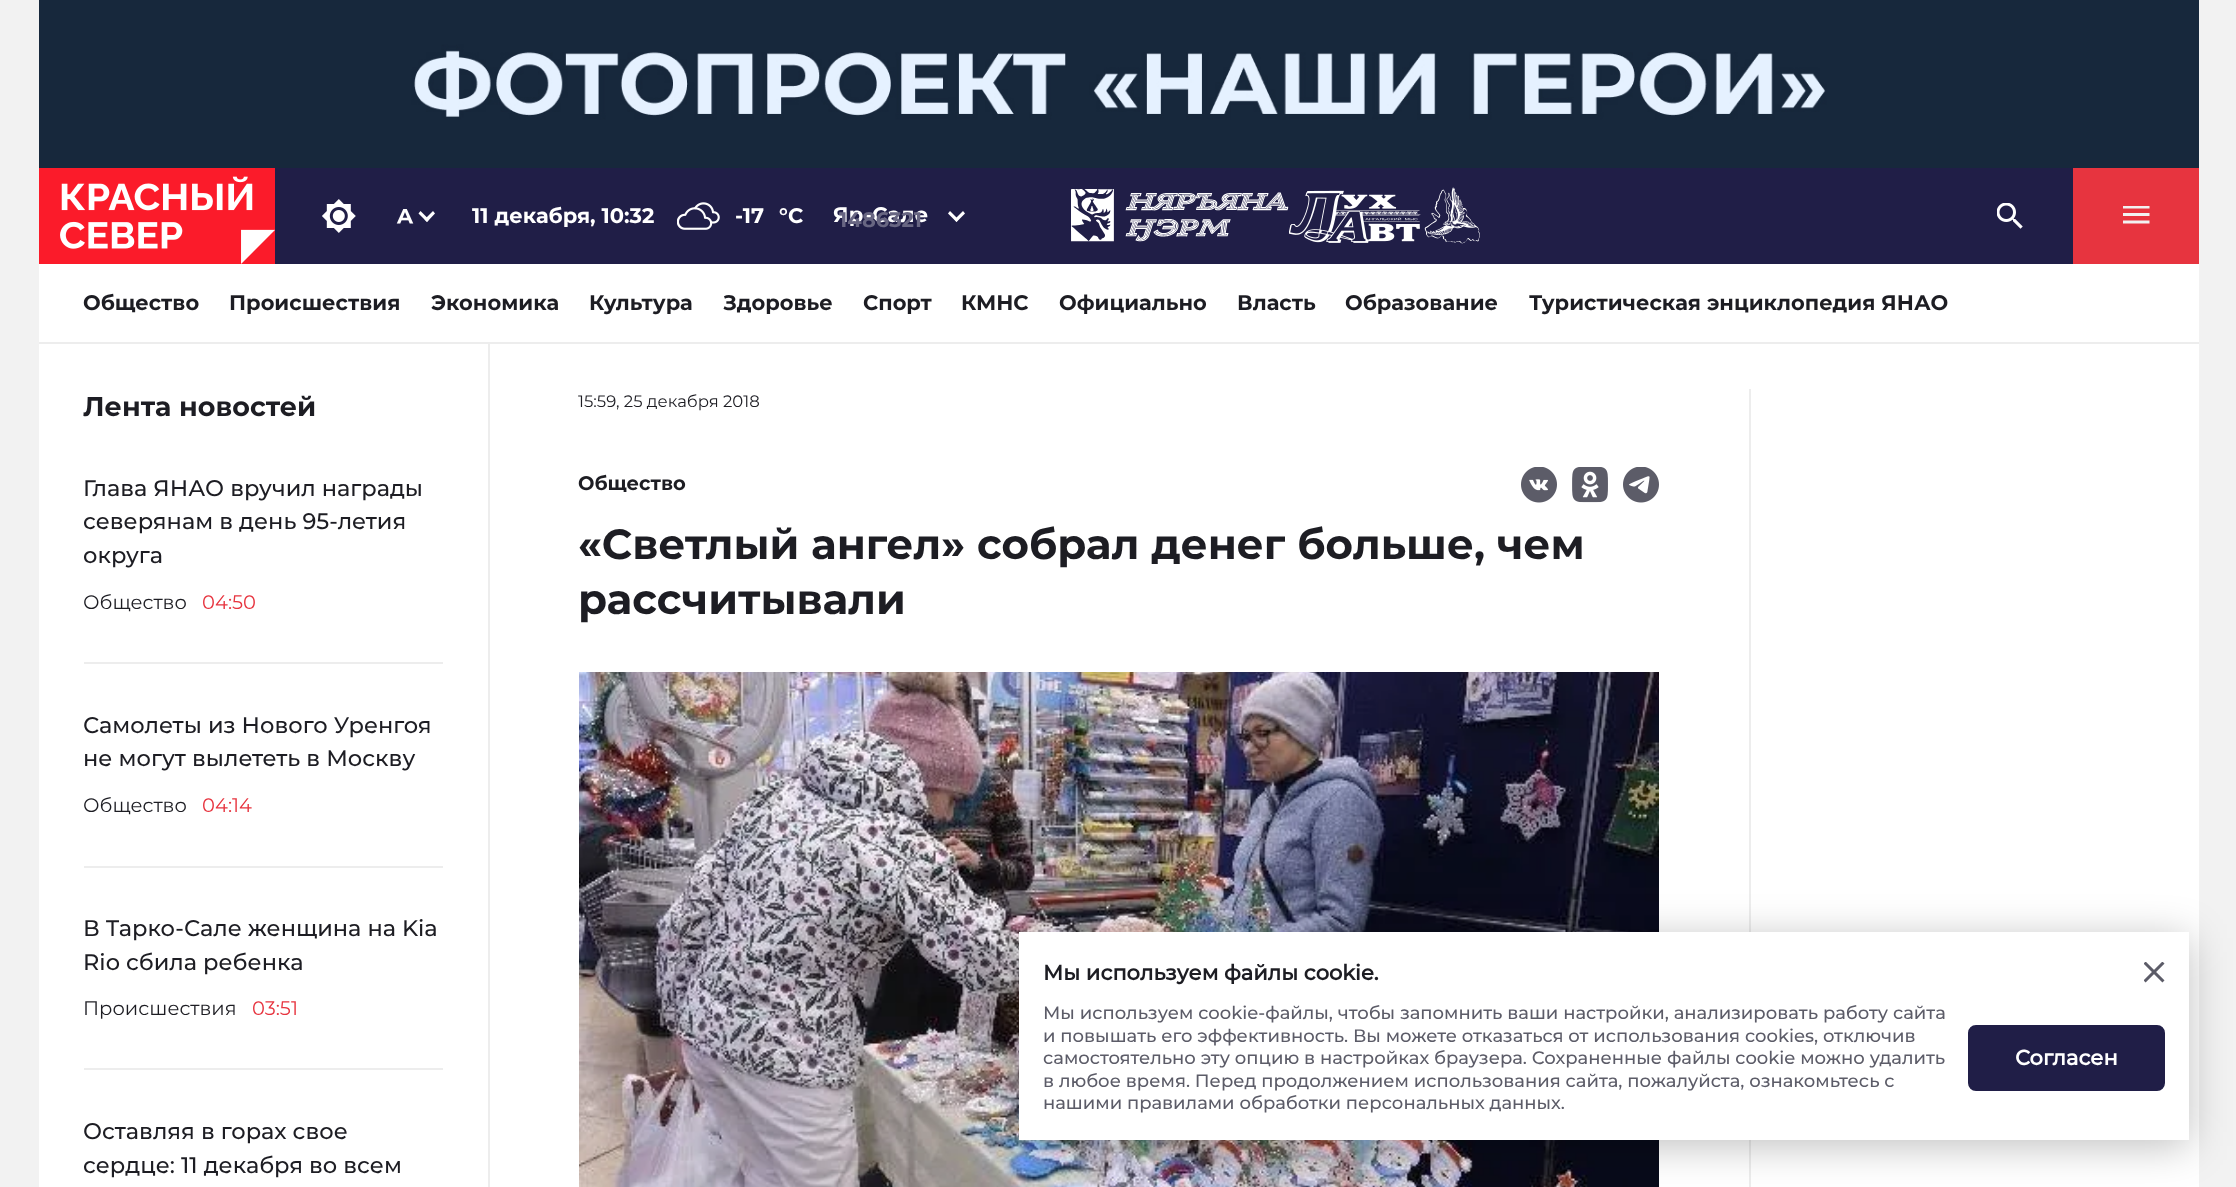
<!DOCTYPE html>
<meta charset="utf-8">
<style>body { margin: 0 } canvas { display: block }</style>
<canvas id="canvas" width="2236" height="1187"></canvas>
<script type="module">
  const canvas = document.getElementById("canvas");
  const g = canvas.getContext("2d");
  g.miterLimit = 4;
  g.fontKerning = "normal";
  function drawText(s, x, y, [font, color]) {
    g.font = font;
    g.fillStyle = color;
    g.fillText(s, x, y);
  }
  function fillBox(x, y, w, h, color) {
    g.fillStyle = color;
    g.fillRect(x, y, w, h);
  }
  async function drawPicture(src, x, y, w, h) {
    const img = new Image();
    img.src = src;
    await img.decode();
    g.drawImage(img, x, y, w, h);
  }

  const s1 = ["bold 21px Montserrat", "#FFFFFF"];
  const s2 = ["bold 21px Montserrat", "#686682"];
  const s3 = ["bold 21px Montserrat", "#1D1D23"];
  const s4 = ["bold 27px Montserrat", "#1D1D23"];
  const s5 = ["500 22.5px Montserrat", "#1D1D23"];
  const s6 = ["19.5px Montserrat", "#1D1D23"];
  const s7 = ["19.5px Montserrat", "#E7343F"];
  const s8 = ["16.5px Montserrat", "#1D1D23"];
  const s9 = ["bold 19.5px Montserrat", "#1D1D23"];
  const s10 = ["bold 42px Montserrat", "#1D1D23"];
  const s11 = ["bold 21px 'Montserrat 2'", "#1D1D23"];
  const s12 = ["500 18px Montserrat", "#5C5C68"];
  const s13 = ["bold 21px 'Montserrat 2'", "#FFFFFF"];

  fillBox(0, 0, 2236, 1187, "#F2F2F2");
  fillBox(275, 168, 1798, 96, "#201E47");
  await drawPicture("pic1.png", 39, 0, 2160, 168);
  await drawPicture("pic2.png", 39, 168, 236, 96);
  await drawPicture("pic3.png", 322, 199, 34, 34);
  await drawPicture("pic4.png", 396, 209, 18, 15);
  g.fillStyle = "#FFFFFF";
  g.beginPath();
  g.moveTo(424.5, 219.5);
  g.lineTo(433, 211);
  g.lineTo(435, 213.5);
  g.lineTo(427, 222);
  g.closePath();
  g.fill();
  g.beginPath();
  g.moveTo(418.5, 213.5);
  g.lineTo(420.5, 211);
  g.lineTo(429, 219.5);
  g.lineTo(427, 222);
  g.closePath();
  g.fill();
  drawText("11 декабря, 10:32", 472, 223, s1);
  await drawPicture("pic5.png", 677, 202, 43, 28);
  drawText("-17", 735, 223, s1);
  drawText("°C", 779, 223, s1);
  g.letterSpacing = "0.25px";
  drawText("Яр-Сале", 833, 222, s1);
  g.beginPath();
  g.moveTo(954.5, 219.5);
  g.lineTo(963, 211);
  g.lineTo(965, 213.5);
  g.lineTo(956.5, 222);
  g.closePath();
  g.fill();
  g.beginPath();
  g.moveTo(948, 213.5);
  g.lineTo(950, 211);
  g.lineTo(958.5, 219.5);
  g.lineTo(956.5, 222);
  g.closePath();
  g.fill();
  g.letterSpacing = "0px";
  drawText("1486321", 839, 227, s2);
  await drawPicture("pic6.png", 1071, 189, 218, 53);
  await drawPicture("pic7.png", 1289, 187, 191, 57);
  await drawPicture("pic8.png", 1997, 203, 26, 26);
  fillBox(2073, 168, 126, 96, "#E7343F");
  await drawPicture("pic9.png", 2123, 206, 27, 18);
  fillBox(39, 264, 2160, 78, "#FFFFFF");
  fillBox(39, 342, 2160, 2, "#EDEDED");
  drawText("Общество", 83, 310, s3);
  drawText("Происшествия", 229, 310, s3);
  drawText("Экономика", 431, 310, s3);
  drawText("Культура", 589, 310, s3);
  drawText("Здоровье", 723, 310, s3);
  drawText("Спорт", 863, 310, s3);
  drawText("КМНС", 961, 310, s3);
  drawText("Официально", 1059, 310, s3);
  drawText("Власть", 1237, 310, s3);
  drawText("Образование", 1345, 310, s3);
  drawText("Туристическая энциклопедия ЯНАО", 1529, 310, s3);
  fillBox(39, 344, 2160, 843, "#FFFFFF");
  fillBox(488, 344, 2, 843, "#EDEDED");
  drawText("Лента новостей", 83, 416, s4);
  drawText("Глава ЯНАО вручил награды", 83, 496, s5);
  drawText("северянам в день 95-летия", 83, 529, s5);
  drawText("округа", 83, 563, s5);
  drawText("Общество", 83, 609, s6);
  drawText("04:50", 202, 609, s7);
  fillBox(84, 662, 359, 2, "#EDEDED");
  drawText("Самолеты из Нового Уренгоя", 83, 733, s5);
  drawText("не могут вылететь в Москву", 83, 766, s5);
  drawText("Общество", 83, 812, s6);
  drawText("04:14", 202, 812, s7);
  fillBox(84, 866, 359, 2, "#EDEDED");
  drawText("В Тарко-Сале женщина на Kia", 83, 936, s5);
  drawText("Rio сбила ребенка", 83, 970, s5);
  drawText("Происшествия", 83, 1015, s6);
  drawText("03:51", 252, 1015, s7);
  fillBox(84, 1068, 359, 2, "#EDEDED");
  drawText("Оставляя в горах свое", 83, 1139, s5);
  drawText("сердце: 11 декабря во всем", 83, 1173, s5);
  drawText("15:59, 25 декабря 2018", 578, 407, s8);
  drawText("Общество", 578, 490, s9);
  await drawPicture("pic10.png", 1521, 467, 36, 36);
  await drawPicture("pic11.png", 1572, 467, 36, 36);
  await drawPicture("pic12.png", 1623, 467, 36, 36);
  drawText("«Светлый ангел» собрал денег больше, чем", 578, 559, s10);
  drawText("рассчитывали", 578, 614, s10);
  await drawPicture("pic13.png", 579, 672, 1080, 515);
  fillBox(1749, 389, 2, 798, "#EDEDED");
  g.fillStyle = "rgba(0, 0, 0, 0.25)";
  g.filter = "blur(20px)";
  g.beginPath();
  g.rect(1019, 938, 1170, 208);
  g.fill();
  g.filter = "none";
  fillBox(1019, 932, 1170, 208, "#FFFFFF");
  drawText("Мы используем файлы cookie.", 1043, 980, s11);
  await drawPicture("pic14.png", 2144, 962, 21, 21);
  drawText("Мы используем cookie-файлы, чтобы запомнить ваши настройки, анализировать работу сайта", 1043, 1019, s12);
  drawText("и повышать его эффективность. Вы можете отказаться от использования cookies, отключив", 1043, 1042, s12);
  drawText("самостоятельно эту опцию в настройках браузера. Сохраненные файлы cookie можно удалить", 1043, 1064, s12);
  drawText("в любое время. Перед продолжением использования сайта, пожалуйста, ознакомьтесь с", 1043, 1087, s12);
  drawText("нашими правилами обработки персональных данных.", 1043, 1109, s12);
  g.fillStyle = "#201E47";
  g.beginPath();
  g.roundRect(1969, 1026, 195, 64, 7);
  g.fill();
  g.strokeStyle = "#201E47";
  g.lineWidth = 2;
  g.stroke();
  drawText("Согласен", 2015, 1065, s13);
</script>
